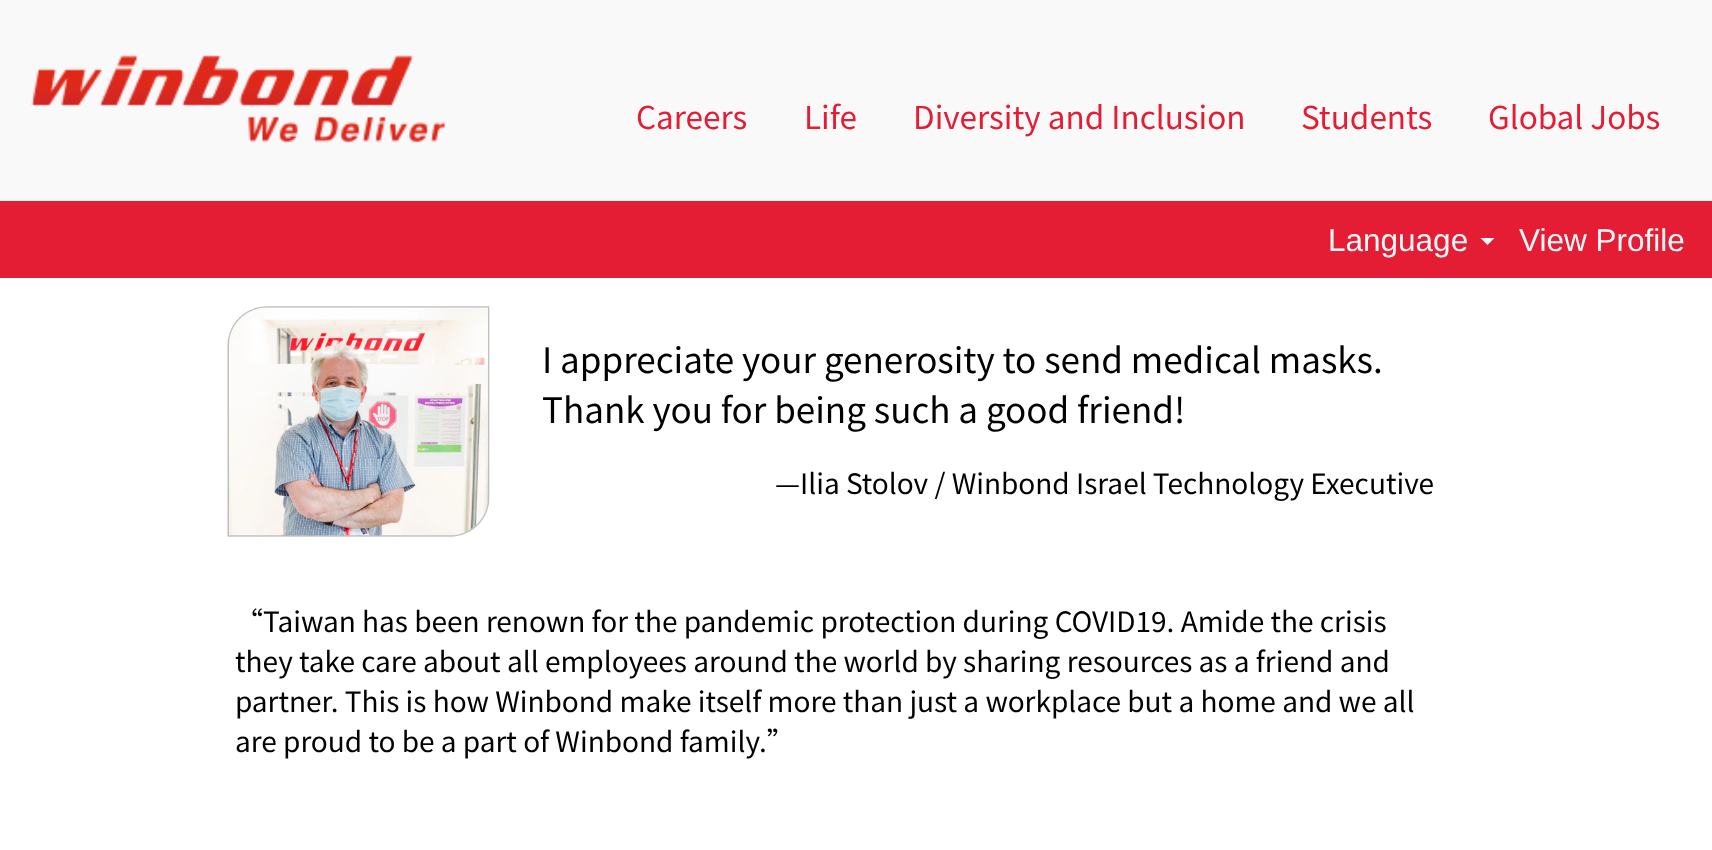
<!DOCTYPE html>
<meta charset="utf-8">
<style>body { margin: 0 } canvas { display: block }</style>
<canvas id="canvas" width="1712" height="850"></canvas>
<script type="module">
  const canvas = document.getElementById("canvas");
  const g = canvas.getContext("2d");
  g.miterLimit = 4;
  g.fontKerning = "normal";
  function drawText(s, x, y, [font, color]) {
    g.font = font;
    g.fillStyle = color;
    g.fillText(s, x, y);
  }
  function fillBox(x, y, w, h, color) {
    g.fillStyle = color;
    g.fillRect(x, y, w, h);
  }
  async function drawPicture(src, x, y, w, h) {
    const img = new Image();
    img.src = src;
    await img.decode();
    g.drawImage(img, x, y, w, h);
  }

  const s1 = ["31.5px Noto Sans TC", "#E41D35"];
  const s2 = ["31.5px Liberation Sans", "#F9F9F9"];
  const s3 = ["35px Noto Sans TC", "#000000"];
  const s4 = ["28px Noto Sans TC", "#000000"];

  fillBox(0, 0, 1712, 850, "#F9F9F9");
  await drawPicture("pic1.png", 31, 55, 415, 88);
  drawText("Careers", 636, 129, s1);
  drawText("Life", 804, 129, s1);
  drawText("Diversity and Inclusion", 913, 129, s1);
  drawText("Students", 1301, 129, s1);
  drawText("Global Jobs", 1488, 129, s1);
  fillBox(0, 201, 1712, 77, "#E41D35");
  drawText("Language", 1328, 251, s2);
  g.beginPath();
  g.moveTo(1480.5, 238);
  g.lineTo(1494.5, 238);
  g.lineTo(1487.5, 245);
  g.closePath();
  g.fill();
  drawText("View Profile", 1519, 251, s2);
  fillBox(0, 278, 1712, 572, "#FFFFFF");
  await drawPicture("pic2.png", 227, 306, 263, 231);
  drawText("I appreciate your generosity to send medical masks.", 542, 373, s3);
  drawText("Thank you for being such a good friend!", 542, 423, s3);
  drawText("—Ilia Stolov / Winbond Israel Technology Executive", 775, 494, s4);
  drawText("“Taiwan has been renown for the pandemic protection during COVID19. Amide the crisis", 235, 632, s4);
  drawText("they take care about all employees around the world by sharing resources as a friend and", 235, 672, s4);
  drawText("partner. This is how Winbond make itself more than just a workplace but a home and we all", 235, 712, s4);
  drawText("are proud to be a part of Winbond family.”", 235, 752, s4);
</script>
